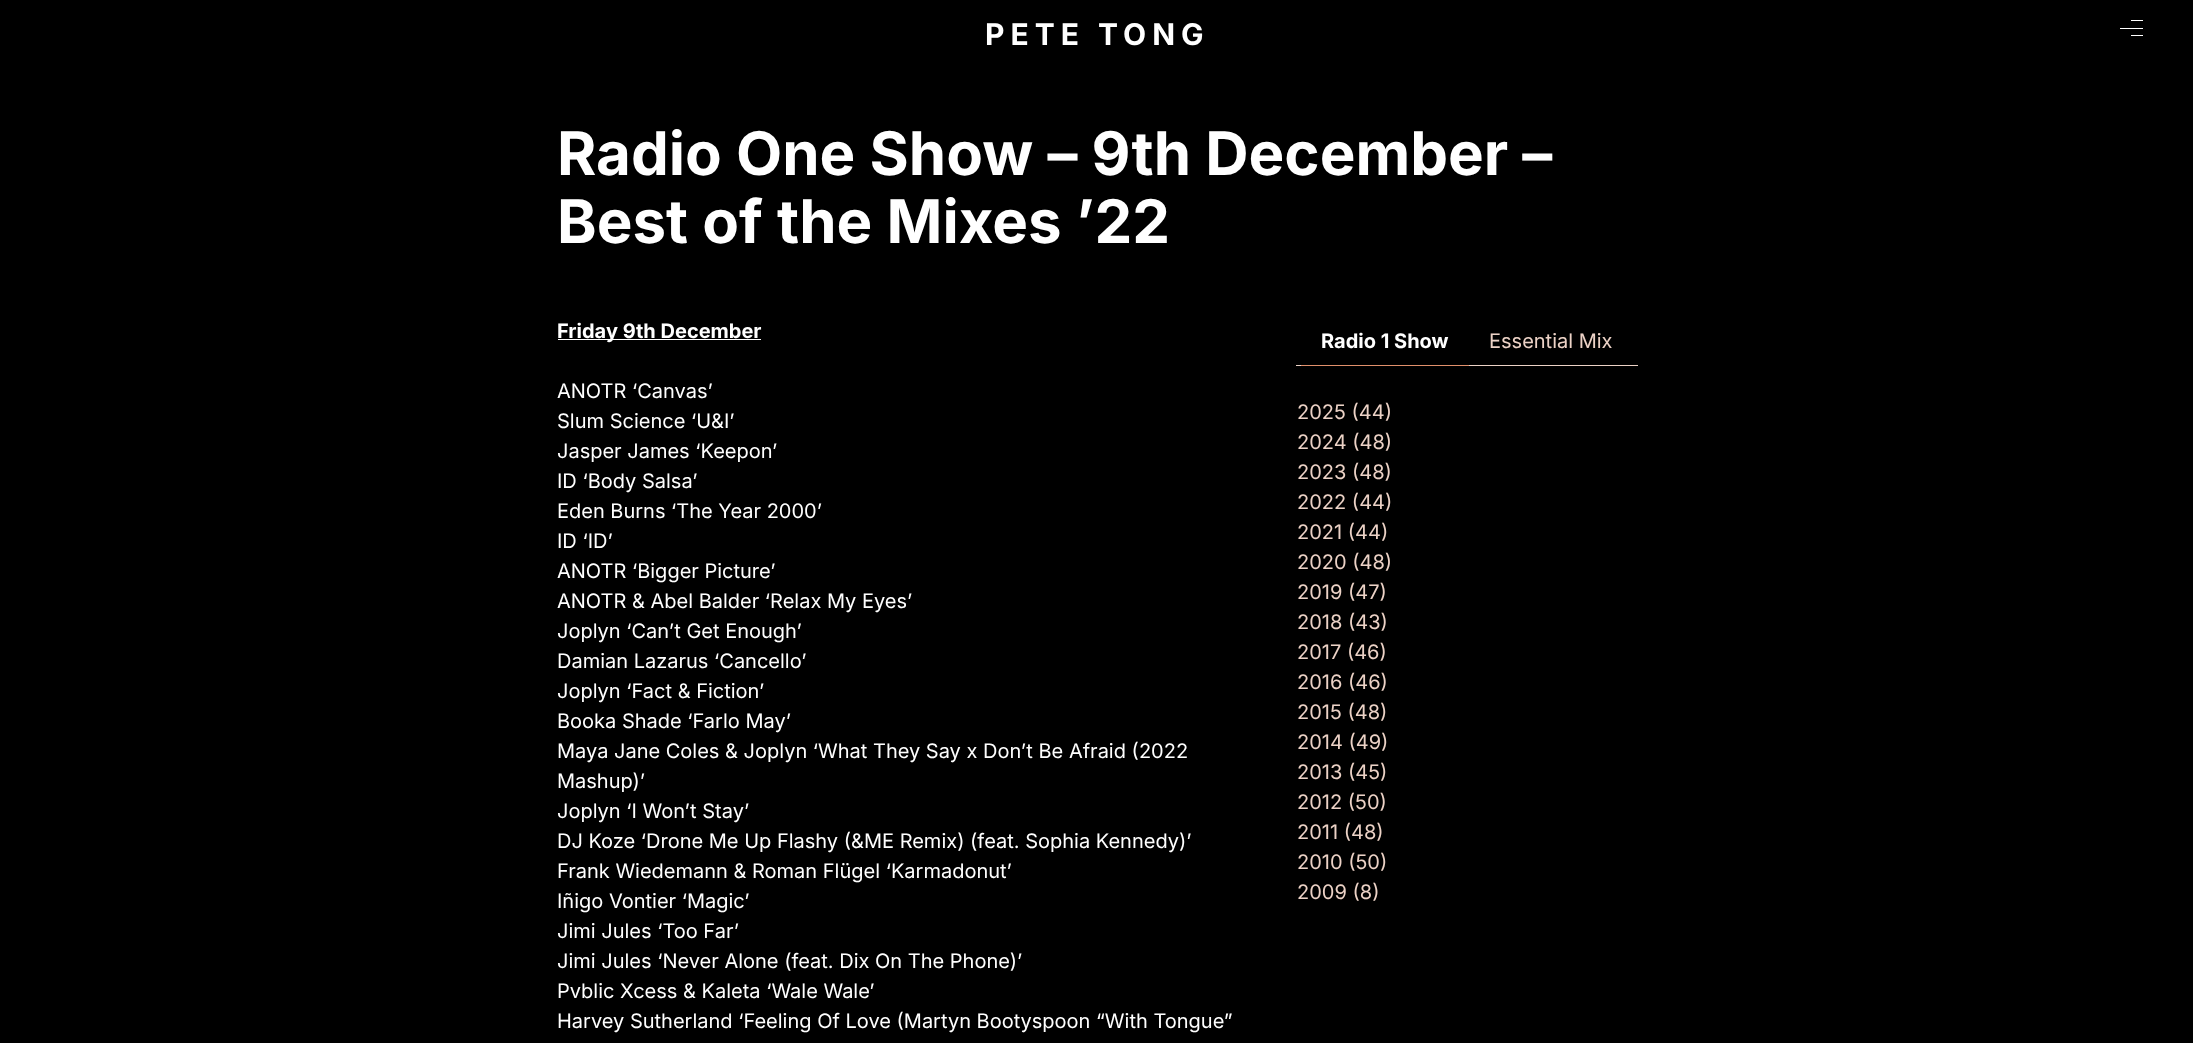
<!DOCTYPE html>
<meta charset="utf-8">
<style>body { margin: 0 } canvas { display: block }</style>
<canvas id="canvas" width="2193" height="1043"></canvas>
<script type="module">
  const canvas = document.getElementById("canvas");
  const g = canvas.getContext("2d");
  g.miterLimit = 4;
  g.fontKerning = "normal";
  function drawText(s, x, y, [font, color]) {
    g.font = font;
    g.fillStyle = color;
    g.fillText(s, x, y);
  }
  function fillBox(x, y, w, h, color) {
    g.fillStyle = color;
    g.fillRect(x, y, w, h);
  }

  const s1 = ["bold 30px Inter", "#FFFFFF"];
  const s2 = ["bold 60px Inter", "#FFFFFF"];
  const s3 = ["bold 20px Inter", "#FFFFFF"];
  const s4 = ["20px Inter", "#FFFFFF"];
  const s5 = ["20px Inter", "#ECD2C6"];

  fillBox(0, 0, 2193, 1043, "#000000");
  g.letterSpacing = "6px";
  drawText("PETE TONG", 985, 45, s1);
  g.letterSpacing = "0px";
  drawText("Radio One Show – 9th December –", 557, 175, s2);
  drawText("Best of the Mixes ’22", 557, 243, s2);
  fillBox(558, 339, 203, 1, "#FFFFFF");
  drawText("Friday 9th December", 557, 338, s3);
  drawText("ANOTR ‘Canvas’", 557, 398, s4);
  drawText("Slum Science ‘U&I’", 557, 428, s4);
  drawText("Jasper James ‘Keepon’", 557, 458, s4);
  drawText("ID ‘Body Salsa’", 557, 488, s4);
  drawText("Eden Burns ‘The Year 2000’", 557, 518, s4);
  drawText("ID ‘ID’", 557, 548, s4);
  drawText("ANOTR ‘Bigger Picture’", 557, 578, s4);
  drawText("ANOTR & Abel Balder ‘Relax My Eyes’", 557, 608, s4);
  drawText("Joplyn ‘Can’t Get Enough’", 557, 638, s4);
  drawText("Damian Lazarus ‘Cancello’", 557, 668, s4);
  drawText("Joplyn ‘Fact & Fiction’", 557, 698, s4);
  drawText("Booka Shade ‘Farlo May’", 557, 728, s4);
  drawText("Maya Jane Coles & Joplyn ‘What They Say x Don’t Be Afraid (2022", 557, 758, s4);
  drawText("Mashup)’", 557, 788, s4);
  drawText("Joplyn ‘I Won’t Stay’", 557, 818, s4);
  drawText("DJ Koze ‘Drone Me Up Flashy (&ME Remix) (feat. Sophia Kennedy)’", 557, 848, s4);
  drawText("Frank Wiedemann & Roman Flügel ‘Karmadonut’", 557, 878, s4);
  drawText("Iñigo Vontier ‘Magic’", 557, 908, s4);
  drawText("Jimi Jules ‘Too Far’", 557, 938, s4);
  drawText("Jimi Jules ‘Never Alone (feat. Dix On The Phone)’", 557, 968, s4);
  drawText("Pvblic Xcess & Kaleta ‘Wale Wale’", 557, 998, s4);
  drawText("Harvey Sutherland ‘Feeling Of Love (Martyn Bootyspoon “With Tongue”", 557, 1028, s4);
  fillBox(1296, 365, 342, 1, "#ECD2C6");
  fillBox(1301, 365, 168, 1, "#E1906C");
  drawText("Radio 1 Show", 1321, 348, s3);
  drawText("Essential Mix", 1489, 348, s5);
  drawText("2025 (44)", 1297, 419, s5);
  drawText("2024 (48)", 1297, 449, s5);
  drawText("2023 (48)", 1297, 479, s5);
  drawText("2022 (44)", 1297, 509, s5);
  drawText("2021 (44)", 1297, 539, s5);
  drawText("2020 (48)", 1297, 569, s5);
  drawText("2019 (47)", 1297, 599, s5);
  drawText("2018 (43)", 1297, 629, s5);
  drawText("2017 (46)", 1297, 659, s5);
  drawText("2016 (46)", 1297, 689, s5);
  drawText("2015 (48)", 1297, 719, s5);
  drawText("2014 (49)", 1297, 749, s5);
  drawText("2013 (45)", 1297, 779, s5);
  drawText("2012 (50)", 1297, 809, s5);
  drawText("2011 (48)", 1297, 839, s5);
  drawText("2010 (50)", 1297, 869, s5);
  drawText("2009 (8)", 1297, 899, s5);
  fillBox(2120, 28, 23, 1, "#FFFFFF");
  fillBox(2131, 20, 12, 1, "#FFFFFF");
  fillBox(2131, 35, 12, 1, "#FFFFFF");
</script>
